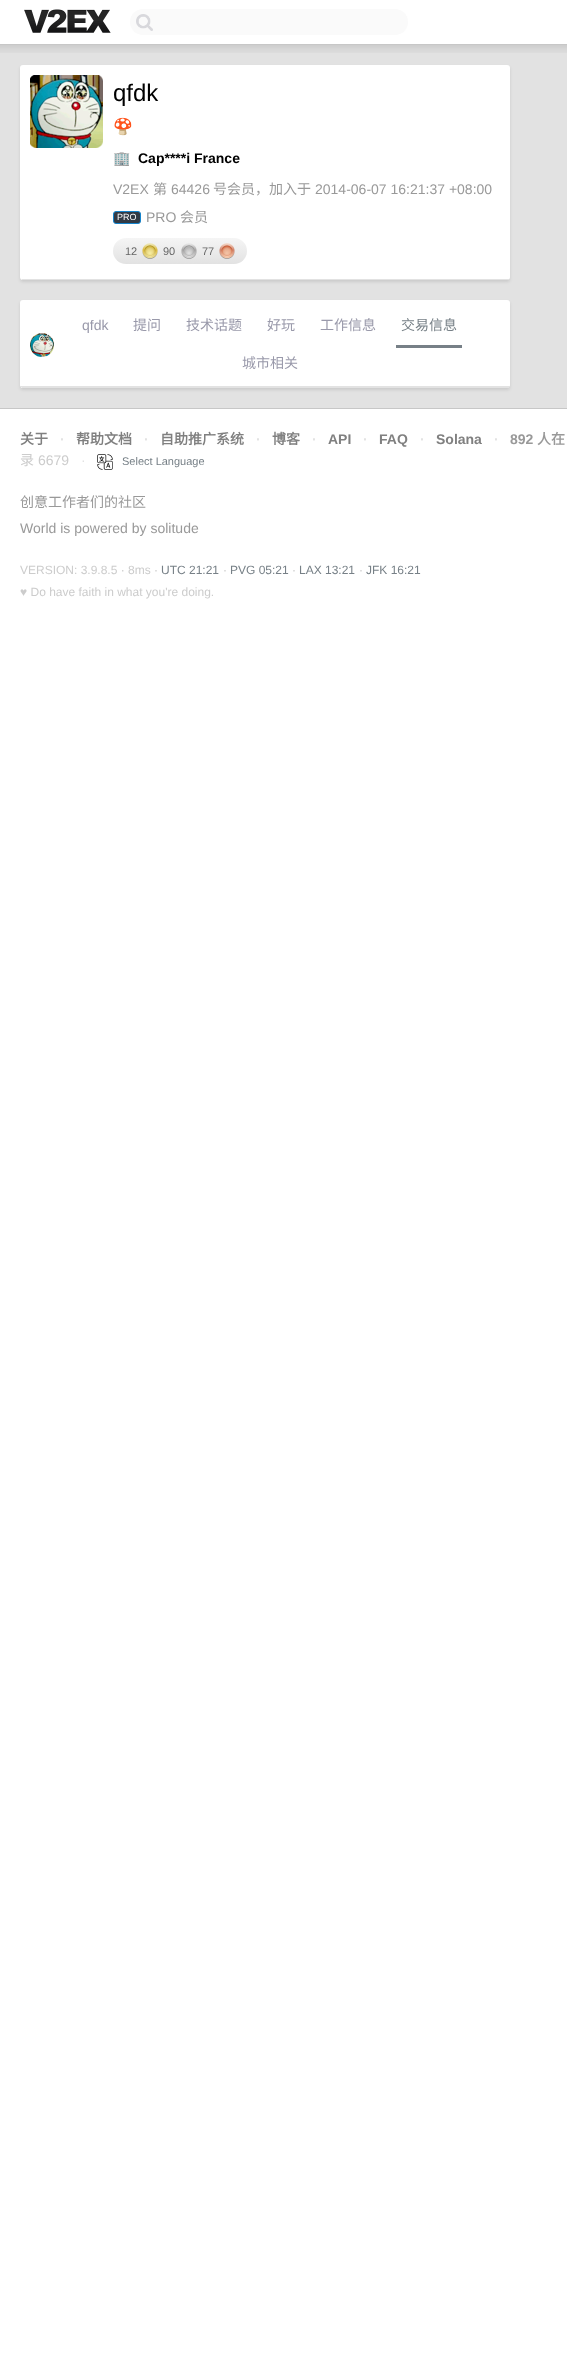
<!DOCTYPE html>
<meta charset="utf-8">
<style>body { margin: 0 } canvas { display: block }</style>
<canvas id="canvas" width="567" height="2376"></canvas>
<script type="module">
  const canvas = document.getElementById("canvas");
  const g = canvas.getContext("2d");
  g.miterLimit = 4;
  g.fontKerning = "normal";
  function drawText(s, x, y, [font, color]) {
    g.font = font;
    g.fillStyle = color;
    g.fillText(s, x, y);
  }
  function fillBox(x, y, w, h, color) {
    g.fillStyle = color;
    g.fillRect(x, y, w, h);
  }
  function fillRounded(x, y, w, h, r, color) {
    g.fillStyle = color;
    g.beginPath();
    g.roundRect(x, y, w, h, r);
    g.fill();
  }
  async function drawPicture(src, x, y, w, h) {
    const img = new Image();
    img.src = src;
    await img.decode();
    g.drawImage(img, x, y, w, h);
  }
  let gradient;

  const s1 = ["24px Liberation Sans", "#000000"];
  const s2 = ["16px Noto Color Emoji", "#000000"];
  const s3 = ["14px Noto Color Emoji", "#000000"];
  const s4 = ["bold 14px Liberation Sans", "#000000"];
  const s5 = ["14px Liberation Sans", "#999999"];
  const s6 = ["14px Noto Sans CJK SC", "#999999"];
  const s7 = ["9px Liberation Sans", "#FFFFFF"];
  const s8 = ["11px Liberation Sans", "#666666"];
  const s9 = ["14px Liberation Sans", "#9999AA"];
  const s10 = ["14px Noto Sans CJK SC", "#9999AA"];
  const s11 = ["14px Noto Sans CJK SC", "#778087"];
  const s12 = ["bold 14px Noto Sans CJK SC", "#808080"];
  const s13 = ["bold 14px Liberation Sans", "#E2E2E2"];
  const s14 = ["bold 14px Liberation Sans", "#808080"];
  const s15 = ["bold 14px Liberation Sans", "#999999"];
  const s16 = ["bold 14px Noto Sans CJK SC", "#999999"];
  const s17 = ["14px Noto Sans CJK SC", "#CCCCCC"];
  const s18 = ["14px Liberation Sans", "#CCCCCC"];
  const s19 = ["14px Liberation Sans", "#E2E2E2"];
  const s20 = ["11px Liberation Sans", "#778087"];
  const s21 = ["12px Liberation Sans", "#CCCCCC"];
  const s22 = ["12px Liberation Sans", "#778087"];

  fillBox(0, 0, 567, 2376, "#FFFFFF");
  fillBox(0, 44, 567, 1, "#C7C7C7");
  await drawPicture("pic1.png", 24, 9, 87, 24);
  fillRounded(130, 9, 278, 26, 13, "#FAFAFA");
  await drawPicture("pic2.png", 136, 14, 17, 17);
  fillBox(0, 45, 567, 363, "#E2E2E2");
  await drawPicture("pic3.png", 0, 45, 567, 8);
  g.fillStyle = "rgba(0, 0, 0, 0.1)";
  g.filter = "blur(1.5px)";
  g.beginPath();
  g.roundRect(20, 67, 490, 215, 3);
  g.fill();
  g.filter = "none";
  fillRounded(20, 65, 490, 215, 3, "#FFFFFF");
  fillBox(22, 279, 487, 1, "#E2E2E2");
  await drawPicture("pic4.png", 30, 75, 73, 73);
  drawText("qfdk", 113, 101, s1);
  drawText("🍄", 113, 132, s2);
  drawText("🏢", 113, 163, s3);
  drawText("Cap****i France", 138, 163, s4);
  drawText("V2EX", 113, 194, s5);
  drawText("第", 153, 194, s6);
  drawText("64426", 171, 194, s5);
  drawText("号会员，加入于", 213, 194, s6);
  drawText("2014-06-07 16:21:37 +08:00", 315, 194, s5);
  g.fillStyle = "#323A45";
  g.beginPath();
  g.roundRect(113.5, 211.5, 27, 12, 2.5);
  g.fill();
  g.strokeStyle = "#1484CD";
  g.stroke();
  drawText("PRO", 117, 220, s7);
  drawText("PRO", 146, 222, s5);
  drawText("会员", 180, 222, s6);
  gradient = g.createLinearGradient(180, 238, 180, 264);
  gradient.addColorStop(0, "#F5F5F5");
  gradient.addColorStop(1, "#E2E2E2");
  g.fillStyle = gradient;
  g.beginPath();
  g.roundRect(113, 238, 134, 26, 13);
  g.fill();
  drawText("12", 125, 255, s8);
  await drawPicture("pic5.png", 142, 243, 16, 16);
  drawText("90", 163, 255, s8);
  await drawPicture("pic6.png", 181, 243, 16, 16);
  drawText("77", 202, 255, s8);
  await drawPicture("pic7.png", 219, 243, 16, 16);
  g.fillStyle = "rgba(0, 0, 0, 0.1)";
  g.filter = "blur(1.5px)";
  g.beginPath();
  g.roundRect(20, 302, 490, 88, 3);
  g.fill();
  g.filter = "none";
  fillRounded(20, 300, 490, 88, 3, "#FFFFFF");
  fillBox(22, 387, 487, 1, "#E2E2E2");
  fillBox(20, 386, 490, 1, "#E2E2E2");
  await drawPicture("pic8.png", 30, 333, 24, 24);
  drawText("qfdk", 82, 330, s9);
  drawText("提问", 133, 330, s10);
  drawText("技术话题", 186, 330, s10);
  drawText("好玩", 267, 330, s10);
  drawText("工作信息", 320, 330, s10);
  fillBox(396, 345, 66, 3, "#778087");
  drawText("交易信息", 401, 330, s11);
  drawText("城市相关", 242, 368, s10);
  fillBox(0, 408, 567, 1, "#C7C7C7");
  drawText("关于", 20, 444, s12);
  drawText("·", 60, 444, s13);
  drawText("帮助文档", 76, 444, s12);
  drawText("·", 144, 444, s13);
  drawText("自助推广系统", 160, 444, s12);
  drawText("·", 256, 444, s13);
  drawText("博客", 272, 444, s12);
  drawText("·", 312, 444, s13);
  drawText("API", 328, 444, s14);
  drawText("·", 363, 444, s13);
  drawText("FAQ", 379, 444, s14);
  drawText("·", 420, 444, s13);
  drawText("Solana", 436, 444, s14);
  drawText("·", 494, 444, s13);
  drawText("892", 510, 444, s15);
  drawText("人在", 537, 444, s16);
  drawText("录", 20, 465, s17);
  drawText("6679", 38, 465, s18);
  drawText("·", 81, 465, s19);
  await drawPicture("pic9.png", 97, 454, 16, 16);
  drawText("Select Language", 122, 465, s20);
  drawText("创意工作者们的社区", 20, 507, s6);
  drawText("World is powered by solitude", 20, 533, s5);
  drawText("VERSION: 3.9.8.5 · 8ms ·", 20, 574, s21);
  drawText("UTC 21:21", 161, 574, s22);
  drawText("·", 223, 574, s21);
  drawText("PVG 05:21", 230, 574, s22);
  drawText("·", 292, 574, s21);
  drawText("LAX 13:21", 299, 574, s22);
  drawText("·", 359, 574, s21);
  drawText("JFK 16:21", 366, 574, s22);
  drawText("♥ Do have faith in what you're doing.", 20, 596, s21);
</script>
